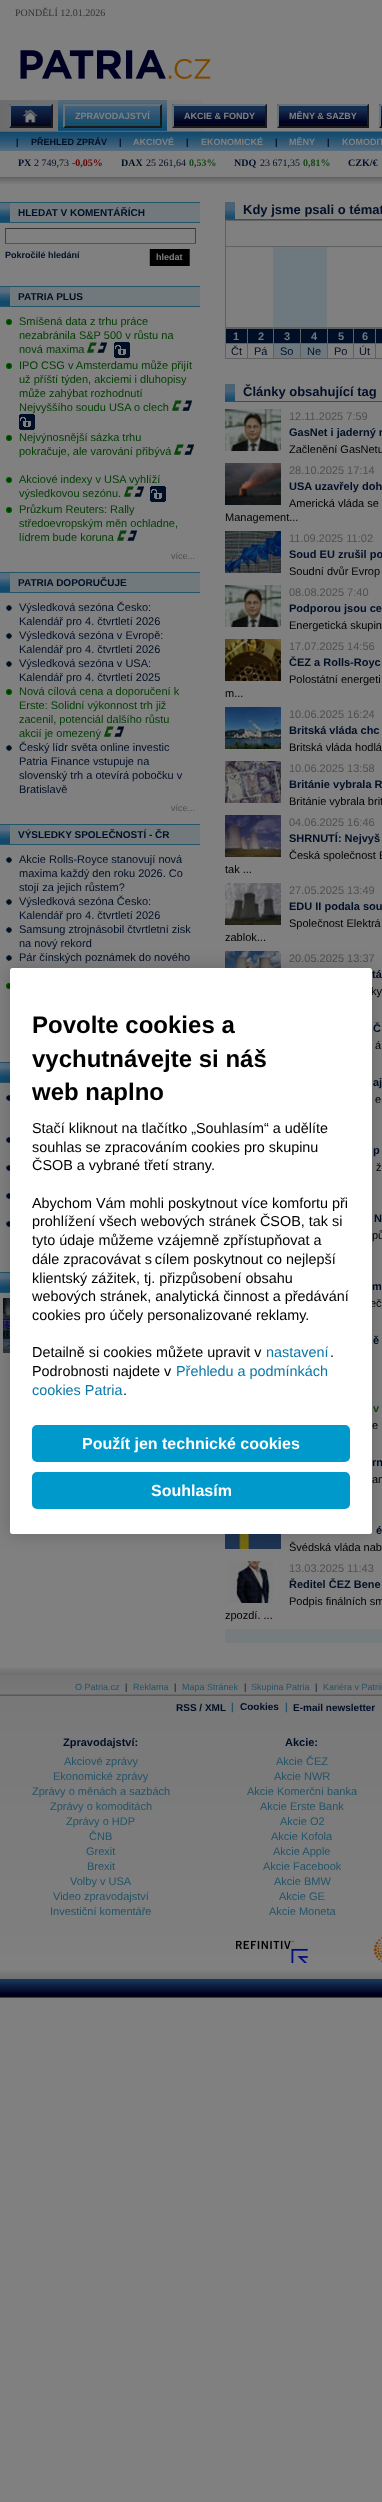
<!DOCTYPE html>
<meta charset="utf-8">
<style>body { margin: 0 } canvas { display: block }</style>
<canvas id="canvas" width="382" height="2502"></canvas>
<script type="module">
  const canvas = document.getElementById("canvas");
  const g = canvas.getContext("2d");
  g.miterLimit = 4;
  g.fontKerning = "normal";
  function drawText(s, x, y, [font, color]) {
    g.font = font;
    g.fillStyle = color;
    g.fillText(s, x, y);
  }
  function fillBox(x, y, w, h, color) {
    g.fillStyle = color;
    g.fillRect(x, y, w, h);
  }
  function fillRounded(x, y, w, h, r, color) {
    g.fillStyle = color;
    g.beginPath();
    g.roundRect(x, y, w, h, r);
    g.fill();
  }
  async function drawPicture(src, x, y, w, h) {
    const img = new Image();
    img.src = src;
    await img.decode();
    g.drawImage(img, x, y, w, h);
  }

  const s1 = ["10px Liberation Serif", "#333333"];
  const s2 = ["bold 9px Liberation Sans", "#808080"];
  const s3 = ["bold 9px Liberation Sans", "#000F26"];
  const s4 = ["bold 10px Liberation Serif", "#000F26"];
  const s5 = ["10px Liberation Serif", "#000F26"];
  const s6 = ["bold 10px Liberation Serif", "#670000"];
  const s7 = ["bold 10px Liberation Serif", "#154715"];
  const s8 = ["bold 10px Liberation Sans", "#000F26"];
  const s9 = ["11px Liberation Sans", "#003C00"];
  const s10 = ["9px Liberation Sans", "#4E4E4E"];
  const s11 = ["11px Liberation Sans", "#000F26"];
  const s12 = ["bold 13px Liberation Sans", "#000F26"];
  const s13 = ["bold 11px Liberation Sans", "#6E787F"];
  const s14 = ["11px Liberation Sans", "#4E4E4E"];
  const s15 = ["bold 11px Liberation Sans", "#000F26"];
  const s16 = ["11px Liberation Sans", "#000000"];
  const s17 = ["bold 11px Liberation Sans", "#0F4910"];
  const s18 = ["9px Liberation Sans", "#235367"];
  const s19 = ["9px Liberation Sans", "#000F26"];
  const s20 = ["bold 10px Liberation Sans", "#235367"];
  const s21 = ["11px Liberation Sans", "#235367"];
  const s22 = ["bold 24px Liberation Sans", "#000000"];
  const s23 = ["14.4px Liberation Sans", "#000000"];
  const s24 = ["14.4px Liberation Sans", "#0A77A9"];
  const s25 = ["bold 16px Liberation Sans", "#FFFFFF"];

  fillBox(0, 0, 382, 2502, "#808080");
  drawText("PONDĚLÍ 12.01.2026", 15, 16, s1);
  await drawPicture("pic1.png", 20, 50, 191, 29);
  await drawPicture("pic2.png", 0, 100, 203, 31);
  fillBox(0, 131, 382, 1, "#606060");
  await drawPicture("pic3.png", 9, 104, 44, 24);
  g.fillStyle = "#647278";
  g.beginPath();
  g.moveTo(9, 104);
  g.lineTo(53, 104);
  g.lineTo(51, 106);
  g.lineTo(11, 106);
  g.closePath();
  g.fill();
  g.fillStyle = "#191919";
  g.beginPath();
  g.moveTo(53, 104);
  g.lineTo(53, 128);
  g.lineTo(51, 126);
  g.lineTo(51, 106);
  g.closePath();
  g.fill();
  g.beginPath();
  g.moveTo(53, 128);
  g.lineTo(9, 128);
  g.lineTo(11, 126);
  g.lineTo(51, 126);
  g.closePath();
  g.fill();
  g.fillStyle = "#647278";
  g.beginPath();
  g.moveTo(9, 128);
  g.lineTo(9, 104);
  g.lineTo(11, 106);
  g.lineTo(11, 126);
  g.closePath();
  g.fill();
  await drawPicture("pic4.png", 58, 100, 109, 31);
  g.beginPath();
  g.moveTo(63, 104);
  g.lineTo(162, 104);
  g.lineTo(160, 106);
  g.lineTo(65, 106);
  g.closePath();
  g.fill();
  g.fillStyle = "#191919";
  g.beginPath();
  g.moveTo(162, 104);
  g.lineTo(162, 128);
  g.lineTo(160, 126);
  g.lineTo(160, 106);
  g.closePath();
  g.fill();
  g.beginPath();
  g.moveTo(162, 128);
  g.lineTo(63, 128);
  g.lineTo(65, 126);
  g.lineTo(160, 126);
  g.closePath();
  g.fill();
  g.fillStyle = "#647278";
  g.beginPath();
  g.moveTo(63, 128);
  g.lineTo(63, 104);
  g.lineTo(65, 106);
  g.lineTo(65, 126);
  g.closePath();
  g.fill();
  drawText("ZPRAVODAJSTVÍ", 75, 119, s2);
  await drawPicture("pic5.png", 172, 104, 95, 24);
  g.fillStyle = "#647278";
  g.beginPath();
  g.moveTo(172, 104);
  g.lineTo(267, 104);
  g.lineTo(265, 106);
  g.lineTo(174, 106);
  g.closePath();
  g.fill();
  g.fillStyle = "#191919";
  g.beginPath();
  g.moveTo(267, 104);
  g.lineTo(267, 128);
  g.lineTo(265, 126);
  g.lineTo(265, 106);
  g.closePath();
  g.fill();
  g.beginPath();
  g.moveTo(267, 128);
  g.lineTo(172, 128);
  g.lineTo(174, 126);
  g.lineTo(265, 126);
  g.closePath();
  g.fill();
  g.fillStyle = "#647278";
  g.beginPath();
  g.moveTo(172, 128);
  g.lineTo(172, 104);
  g.lineTo(174, 106);
  g.lineTo(174, 126);
  g.closePath();
  g.fill();
  drawText("AKCIE & FONDY", 184, 119, s2);
  await drawPicture("pic6.png", 277, 104, 92, 24);
  g.fillStyle = "#647278";
  g.beginPath();
  g.moveTo(277, 104);
  g.lineTo(369, 104);
  g.lineTo(367, 106);
  g.lineTo(279, 106);
  g.closePath();
  g.fill();
  g.fillStyle = "#191919";
  g.beginPath();
  g.moveTo(369, 104);
  g.lineTo(369, 128);
  g.lineTo(367, 126);
  g.lineTo(367, 106);
  g.closePath();
  g.fill();
  g.beginPath();
  g.moveTo(369, 128);
  g.lineTo(277, 128);
  g.lineTo(279, 126);
  g.lineTo(367, 126);
  g.closePath();
  g.fill();
  g.fillStyle = "#647278";
  g.beginPath();
  g.moveTo(277, 128);
  g.lineTo(277, 104);
  g.lineTo(279, 106);
  g.lineTo(279, 126);
  g.closePath();
  g.fill();
  drawText("MĚNY & SAZBY", 289, 119, s2);
  await drawPicture("pic7.png", 379, 104, 3, 24);
  g.fillStyle = "#647278";
  g.beginPath();
  g.moveTo(379, 104);
  g.lineTo(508, 104);
  g.lineTo(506, 106);
  g.lineTo(381, 106);
  g.closePath();
  g.fill();
  g.fillStyle = "#191919";
  g.beginPath();
  g.moveTo(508, 128);
  g.lineTo(379, 128);
  g.lineTo(381, 126);
  g.lineTo(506, 126);
  g.closePath();
  g.fill();
  g.fillStyle = "#647278";
  g.beginPath();
  g.moveTo(379, 128);
  g.lineTo(379, 104);
  g.lineTo(381, 106);
  g.lineTo(381, 126);
  g.closePath();
  g.fill();
  await drawPicture("pic8.png", 0, 132, 382, 19);
  drawText("|", 16, 145, s3);
  drawText("PŘEHLED ZPRÁV", 31, 145, s3);
  drawText("|", 119, 145, s3);
  drawText("AKCIOVÉ", 133, 145, s2);
  drawText("|", 186, 145, s3);
  drawText("EKONOMICKÉ", 201, 145, s2);
  drawText("|", 275, 145, s3);
  drawText("MĚNY", 289, 145, s2);
  drawText("|", 327, 145, s3);
  drawText("KOMODIT", 342, 145, s2);
  fillBox(0, 177, 382, 1, "#606060");
  drawText("PX", 18, 166, s4);
  drawText("2 749,73", 34, 166, s5);
  drawText("-0,05%", 72, 166, s6);
  drawText("DAX", 121, 166, s4);
  drawText("25 261,64", 146, 166, s5);
  drawText("0,53%", 189, 166, s7);
  drawText("NDQ", 234, 166, s4);
  drawText("23 671,35", 260, 166, s5);
  drawText("0,81%", 303, 166, s7);
  drawText("CZK/€", 348, 166, s4);
  await drawPicture("pic9.png", 0, 178, 382, 6);
  fillBox(10, 203, 190, 19, "#72797C");
  await drawPicture("pic10.png", 0, 203, 10, 19);
  fillBox(0, 202, 200, 1, "#235367");
  drawText("HLEDAT V KOMENTÁŘÍCH", 18, 216, s8);
  fillBox(0, 222, 200, 1, "#235367");
  fillBox(5, 228, 191, 1, "#333333");
  fillBox(195, 228, 1, 16, "#3D4346");
  fillBox(5, 243, 191, 1, "#545455");
  fillBox(5, 228, 1, 16, "#3D4346");
  drawText("Pokročilé hledání", 5, 258, s3);
  fillBox(150, 249, 39, 17, "#000000");
  fillBox(189, 249, 1, 17, "#1A2638");
  fillBox(149, 249, 1, 17, "#516973");
  drawText("hledat", 156, 260, s2);
  fillBox(10, 287, 190, 19, "#72797C");
  await drawPicture("pic10.png", 0, 287, 10, 19);
  fillBox(0, 286, 200, 1, "#235367");
  drawText("PATRIA PLUS", 18, 300, s8);
  fillBox(0, 306, 200, 1, "#235367");
  await drawPicture("pic11.png", 6, 319, 6, 6);
  drawText("Smíšená data z trhu práce", 19, 325, s9);
  drawText("nezabránila S&P 500 v růstu na", 19, 339, s9);
  drawText("nová maxima", 19, 353, s9);
  await drawPicture("pic12.png", 87, 342, 20, 11);
  await drawPicture("pic13.png", 114, 342, 16, 16);
  await drawPicture("pic11.png", 6, 363, 6, 6);
  drawText("IPO CSG v Amsterdamu může přijít", 19, 369, s9);
  drawText("už příští týden, akciemi i dluhopisy", 19, 383, s9);
  drawText("může zahýbat rozhodnutí", 19, 397, s9);
  drawText("Nejvyššího soudu USA o clech", 19, 411, s9);
  await drawPicture("pic12.png", 172, 400, 20, 11);
  await drawPicture("pic13.png", 19, 414, 16, 16);
  await drawPicture("pic11.png", 6, 435, 6, 6);
  drawText("Nejvýnosnější sázka trhu", 19, 441, s9);
  drawText("pokračuje, ale varování přibývá", 19, 455, s9);
  await drawPicture("pic12.png", 174, 444, 20, 11);
  await drawPicture("pic11.png", 6, 477, 6, 6);
  drawText("Akciové indexy v USA vyhlíží", 19, 483, s9);
  drawText("výsledkovou sezónu.", 19, 497, s9);
  await drawPicture("pic12.png", 124, 486, 20, 11);
  await drawPicture("pic13.png", 150, 486, 16, 16);
  await drawPicture("pic11.png", 6, 507, 6, 6);
  drawText("Průzkum Reuters: Rally", 19, 513, s9);
  drawText("středoevropským měn ochladne,", 19, 527, s9);
  drawText("lídrem bude koruna", 19, 541, s9);
  await drawPicture("pic12.png", 117, 530, 20, 11);
  drawText("více...", 171, 559, s10);
  fillBox(10, 573, 190, 19, "#72797C");
  await drawPicture("pic10.png", 0, 573, 10, 19);
  fillBox(0, 572, 200, 1, "#235367");
  drawText("PATRIA DOPORUČUJE", 18, 586, s8);
  fillBox(0, 592, 200, 1, "#235367");
  await drawPicture("pic14.png", 6, 605, 6, 6);
  drawText("Výsledková sezóna Česko:", 19, 611, s11);
  drawText("Kalendář pro 4. čtvrtletí 2026", 19, 625, s11);
  await drawPicture("pic14.png", 6, 633, 6, 6);
  drawText("Výsledková sezóna v Evropě:", 19, 639, s11);
  drawText("Kalendář pro 4. čtvrtletí 2026", 19, 653, s11);
  await drawPicture("pic14.png", 6, 661, 6, 6);
  drawText("Výsledková sezóna v USA:", 19, 667, s11);
  drawText("Kalendář pro 4. čtvrtletí 2025", 19, 681, s11);
  await drawPicture("pic11.png", 6, 689, 6, 6);
  drawText("Nová cílová cena a doporučení k", 19, 695, s9);
  drawText("Erste: Solidní výkonnost trh již", 19, 709, s9);
  drawText("zacenil, potenciál dalšího růstu", 19, 723, s9);
  drawText("akcií je omezený", 19, 737, s9);
  await drawPicture("pic12.png", 104, 726, 20, 11);
  await drawPicture("pic14.png", 6, 745, 6, 6);
  drawText("Český lídr světa online investic", 19, 751, s11);
  drawText("Patria Finance vstupuje na", 19, 765, s11);
  drawText("slovenský trh a otevírá pobočku v", 19, 779, s11);
  drawText("Bratislavě", 19, 793, s11);
  drawText("více...", 171, 811, s10);
  fillBox(10, 825, 190, 19, "#72797C");
  await drawPicture("pic10.png", 0, 825, 10, 19);
  fillBox(0, 824, 200, 1, "#235367");
  drawText("VÝSLEDKY SPOLEČNOSTÍ - ČR", 18, 838, s8);
  fillBox(0, 844, 200, 1, "#235367");
  await drawPicture("pic14.png", 6, 857, 6, 6);
  drawText("Akcie Rolls-Royce stanovují nová", 19, 863, s11);
  drawText("maxima každý den roku 2026. Co", 19, 877, s11);
  drawText("stojí za jejich růstem?", 19, 891, s11);
  await drawPicture("pic14.png", 6, 899, 6, 6);
  drawText("Výsledková sezóna Česko:", 19, 905, s11);
  drawText("Kalendář pro 4. čtvrtletí 2026", 19, 919, s11);
  await drawPicture("pic14.png", 6, 927, 6, 6);
  drawText("Samsung ztrojnásobil čtvrtletní zisk", 19, 933, s11);
  drawText("na nový rekord", 19, 947, s11);
  await drawPicture("pic14.png", 6, 955, 6, 6);
  drawText("Pár čínských poznámek do nového", 19, 961, s11);
  await drawPicture("pic15.png", 6, 983, 4, 6);
  await drawPicture("pic10.png", 0, 1063, 10, 19);
  fillBox(0, 1062, 10, 1, "#235367");
  fillBox(0, 1082, 10, 1, "#235367");
  await drawPicture("pic16.png", 6, 1095, 4, 6);
  await drawPicture("pic16.png", 6, 1137, 4, 6);
  await drawPicture("pic16.png", 6, 1165, 4, 6);
  await drawPicture("pic16.png", 6, 1193, 4, 6);
  await drawPicture("pic16.png", 6, 1221, 4, 6);
  await drawPicture("pic10.png", 0, 1273, 10, 19);
  fillBox(0, 1272, 10, 1, "#235367");
  fillBox(0, 1292, 10, 1, "#235367");
  await drawPicture("pic17.png", 3, 1298, 7, 55);
  await drawPicture("pic18.png", 225, 202, 10, 17);
  fillBox(225, 219, 157, 1, "#235367");
  drawText("Kdy jsme psali o témat", 243, 214, s12);
  fillBox(225, 358, 157, 1, "#606060");
  fillBox(225, 220, 157, 1, "#606060");
  fillBox(225, 220, 1, 26, "#606060");
  fillBox(225, 246, 157, 1, "#606060");
  fillBox(225, 327, 157, 1, "#606060");
  fillBox(225, 246, 1, 82, "#606060");
  fillBox(273, 247, 54, 80, "#6E787F");
  fillBox(226, 329, 21, 14, "#000F26");
  fillBox(225, 328, 150, 1, "#606060");
  fillBox(225, 328, 1, 15, "#606060");
  drawText("1", 233, 340, s13);
  fillBox(248, 329, 25, 14, "#000F26");
  fillBox(247, 328, 1, 15, "#606060");
  drawText("2", 258, 340, s13);
  fillBox(274, 329, 26, 14, "#000F26");
  fillBox(273, 328, 1, 15, "#606060");
  drawText("3", 284, 340, s13);
  fillBox(301, 329, 26, 14, "#000F26");
  fillBox(300, 328, 1, 15, "#606060");
  drawText("4", 311, 340, s13);
  fillBox(328, 329, 25, 14, "#000F26");
  fillBox(327, 328, 1, 15, "#606060");
  drawText("5", 338, 340, s13);
  fillBox(354, 329, 21, 14, "#000F26");
  fillBox(353, 328, 1, 15, "#606060");
  drawText("6", 362, 340, s13);
  fillBox(376, 328, 6, 15, "#000F26");
  fillBox(375, 328, 7, 1, "#606060");
  fillBox(375, 328, 1, 15, "#606060");
  fillBox(225, 343, 157, 1, "#606060");
  fillBox(225, 343, 1, 15, "#606060");
  drawText("Čt", 231, 355, s11);
  fillBox(247, 343, 1, 15, "#606060");
  drawText("Pá", 254, 355, s11);
  fillBox(274, 344, 26, 14, "#6E787F");
  fillBox(273, 343, 1, 15, "#606060");
  drawText("So", 280, 355, s11);
  fillBox(301, 344, 26, 14, "#6E787F");
  fillBox(300, 343, 1, 15, "#606060");
  drawText("Ne", 307, 355, s11);
  fillBox(327, 343, 1, 15, "#606060");
  drawText("Po", 334, 355, s11);
  fillBox(353, 343, 1, 15, "#606060");
  drawText("Út", 359, 355, s11);
  fillBox(375, 343, 1, 15, "#606060");
  await drawPicture("pic18.png", 225, 384, 10, 17);
  fillBox(225, 401, 157, 1, "#235367");
  drawText("Články obsahující tag", 243, 396, s12);
  await drawPicture("pic19.png", 225, 409, 56, 42);
  drawText("12.11.2025 7:59", 289, 420, s14);
  drawText("GasNet i jaderný r", 289, 436, s15);
  drawText("Začlenění GasNetu", 289, 453, s16);
  await drawPicture("pic20.png", 225, 463, 56, 42);
  drawText("28.10.2025 17:14", 289, 474, s14);
  drawText("USA uzavřely doh", 289, 490, s15);
  drawText("Americká vláda se", 289, 507, s16);
  drawText("Management...", 225, 521, s16);
  await drawPicture("pic21.png", 225, 531, 56, 42);
  drawText("11.09.2025 11:02", 289, 542, s14);
  drawText("Soud EU zrušil po", 289, 558, s15);
  drawText("Soudní dvůr Evrop", 289, 575, s16);
  await drawPicture("pic19.png", 225, 585, 56, 42);
  drawText("08.08.2025 7:40", 289, 596, s14);
  drawText("Podporou jsou ce", 289, 612, s15);
  drawText("Energetická skupin", 289, 629, s16);
  await drawPicture("pic22.png", 225, 639, 56, 42);
  drawText("17.07.2025 14:56", 289, 650, s14);
  drawText("ČEZ a Rolls-Royc", 289, 666, s15);
  drawText("Polostátní energeti", 289, 683, s16);
  drawText("m...", 225, 697, s16);
  await drawPicture("pic23.png", 225, 707, 56, 42);
  drawText("10.06.2025 16:24", 289, 718, s14);
  drawText("Britská vláda chc", 289, 734, s15);
  drawText("Britská vláda hodlá", 289, 751, s16);
  await drawPicture("pic24.png", 225, 761, 56, 42);
  drawText("10.06.2025 13:58", 289, 772, s14);
  drawText("Británie vybrala R", 289, 788, s15);
  drawText("Británie vybrala brit", 289, 805, s16);
  await drawPicture("pic25.png", 225, 815, 56, 42);
  drawText("04.06.2025 16:46", 289, 826, s14);
  drawText("SHRNUTÍ: Nejvyš", 289, 842, s15);
  drawText("Česká společnost E", 289, 859, s16);
  drawText("tak ...", 225, 873, s16);
  await drawPicture("pic26.png", 225, 883, 56, 42);
  drawText("27.05.2025 13:49", 289, 894, s14);
  drawText("EDU II podala sou", 289, 910, s15);
  drawText("Společnost Elektrá", 289, 927, s16);
  drawText("zablok...", 225, 941, s16);
  await drawPicture("pic27.png", 225, 951, 56, 17);
  drawText("20.05.2025 13:37", 289, 962, s14);
  drawText("tá", 372, 978, s15);
  drawText("ky", 371, 995, s16);
  drawText("Č", 373, 1032, s15);
  drawText("á", 375, 1049, s16);
  drawText("aj", 373, 1086, s15);
  drawText("e", 375, 1103, s16);
  drawText("p", 373, 1154, s15);
  drawText("ž", 376, 1171, s16);
  drawText("N", 374, 1222, s15);
  drawText("pů", 372, 1239, s16);
  drawText("m", 372, 1290, s15);
  drawText("eč", 370, 1307, s16);
  drawText("ě", 373, 1344, s15);
  drawText("v", 373, 1412, s17);
  drawText("e", 372, 1429, s16);
  drawText("rn", 372, 1466, s15);
  drawText("an", 372, 1483, s16);
  await drawPicture("pic28.png", 225, 1534, 56, 15);
  drawText("é", 376, 1534, s15);
  drawText("Švédská vláda nab", 289, 1551, s16);
  await drawPicture("pic29.png", 226, 1561, 47, 42);
  drawText("13.03.2025 11:43", 289, 1572, s14);
  drawText("Ředitel ČEZ Bene", 289, 1588, s15);
  drawText("Podpis finálních sm", 289, 1605, s16);
  drawText("zpozdí. ...", 225, 1619, s16);
  fillBox(225, 1629, 157, 14, "#767B7D");
  await drawPicture("pic30.png", 0, 1668, 382, 330);
  drawText("O Patria.cz", 75, 1690, s18);
  drawText("|", 125, 1690, s19);
  drawText("Reklama", 133, 1690, s18);
  drawText("|", 174, 1690, s19);
  drawText("Mapa Stránek", 182, 1690, s18);
  drawText("|", 244, 1690, s19);
  drawText("Skupina Patria", 251, 1690, s18);
  drawText("|", 315, 1690, s19);
  drawText("Kariéra v Patrii", 323, 1690, s18);
  drawText("RSS / XML", 176, 1711, s8);
  drawText("|", 231, 1710, s20);
  drawText("Cookies", 240, 1710, s8);
  drawText("|", 285, 1710, s20);
  drawText("E-mail newsletter", 293, 1711, s8);
  drawText("Zpravodajství:", 63, 1746, s15);
  drawText("Akciové zprávy", 64, 1765, s21);
  drawText("Ekonomické zprávy", 53, 1780, s21);
  drawText("Zprávy o měnách a sazbách", 32, 1795, s21);
  drawText("Zprávy o komoditách", 50, 1810, s21);
  drawText("Zprávy o HDP", 66, 1825, s21);
  drawText("ČNB", 89, 1840, s21);
  drawText("Grexit", 86, 1855, s21);
  drawText("Brexit", 87, 1870, s21);
  drawText("Volby v USA", 70, 1885, s21);
  drawText("Video zpravodajství", 53, 1900, s21);
  drawText("Investiční komentáře", 50, 1915, s21);
  drawText("Akcie:", 285, 1746, s15);
  drawText("Akcie ČEZ", 276, 1765, s21);
  drawText("Akcie NWR", 274, 1780, s21);
  drawText("Akcie Komerční banka", 247, 1795, s21);
  drawText("Akcie Erste Bank", 260, 1810, s21);
  drawText("Akcie O2", 280, 1825, s21);
  drawText("Akcie Kofola", 271, 1840, s21);
  drawText("Akcie Apple", 273, 1855, s21);
  drawText("Akcie Facebook", 263, 1870, s21);
  drawText("Akcie BMW", 274, 1885, s21);
  drawText("Akcie GE", 279, 1900, s21);
  drawText("Akcie Moneta", 269, 1915, s21);
  await drawPicture("pic31.png", 236, 1940, 72, 23);
  await drawPicture("pic32.png", 373, 1937, 9, 26);
  g.fillStyle = "rgba(0, 0, 0, 0.2)";
  g.filter = "blur(9px)";
  g.beginPath();
  g.roundRect(10, 968, 362, 566, 2.5);
  g.fill();
  g.filter = "none";
  fillRounded(10, 968, 362, 566, 2.5, "#FFFFFF");
  drawText("Povolte cookies a", 32, 1033, s22);
  drawText("vychutnávejte si náš", 32, 1067, s22);
  drawText("web naplno", 32, 1100, s22);
  drawText("Stačí kliknout na tlačítko „Souhlasím“ a udělíte", 32, 1133, s23);
  drawText("souhlas se zpracováním cookies pro skupinu", 32, 1152, s23);
  drawText("ČSOB a vybrané třetí strany.", 32, 1170, s23);
  drawText("Abychom Vám mohli poskytnout více komfortu při", 32, 1208, s23);
  drawText("prohlížení všech webových stránek ČSOB, tak si", 32, 1226, s23);
  drawText("tyto údaje můžeme vzájemně zpřístupňovat a", 32, 1245, s23);
  drawText("dále zpracovávat s cílem poskytnout co nejlepší", 32, 1264, s23);
  drawText("klientský zážitek, tj. přizpůsobení obsahu", 32, 1283, s23);
  drawText("webových stránek, analytická činnost a předávání", 32, 1301, s23);
  drawText("cookies pro účely personalizované reklamy.", 32, 1320, s23);
  drawText("Detailně si cookies můžete upravit v", 32, 1357, s23);
  drawText("nastavení", 266, 1357, s24);
  drawText(".", 330, 1357, s23);
  drawText("Podrobnosti najdete v", 32, 1376, s23);
  drawText("Přehledu a podmínkách", 176, 1376, s24);
  drawText("cookies Patria", 32, 1395, s24);
  drawText(".", 123, 1395, s23);
  g.fillStyle = "#0099CC";
  g.beginPath();
  g.roundRect(33, 1426, 316, 35, 4);
  g.fill();
  g.strokeStyle = "#0099CC";
  g.lineWidth = 2;
  g.stroke();
  drawText("Použít jen technické cookies", 82, 1449, s25);
  g.fillStyle = "#0099CC";
  g.beginPath();
  g.roundRect(33, 1473, 316, 35, 4);
  g.fill();
  g.stroke();
  drawText("Souhlasím", 151, 1496, s25);
</script>
